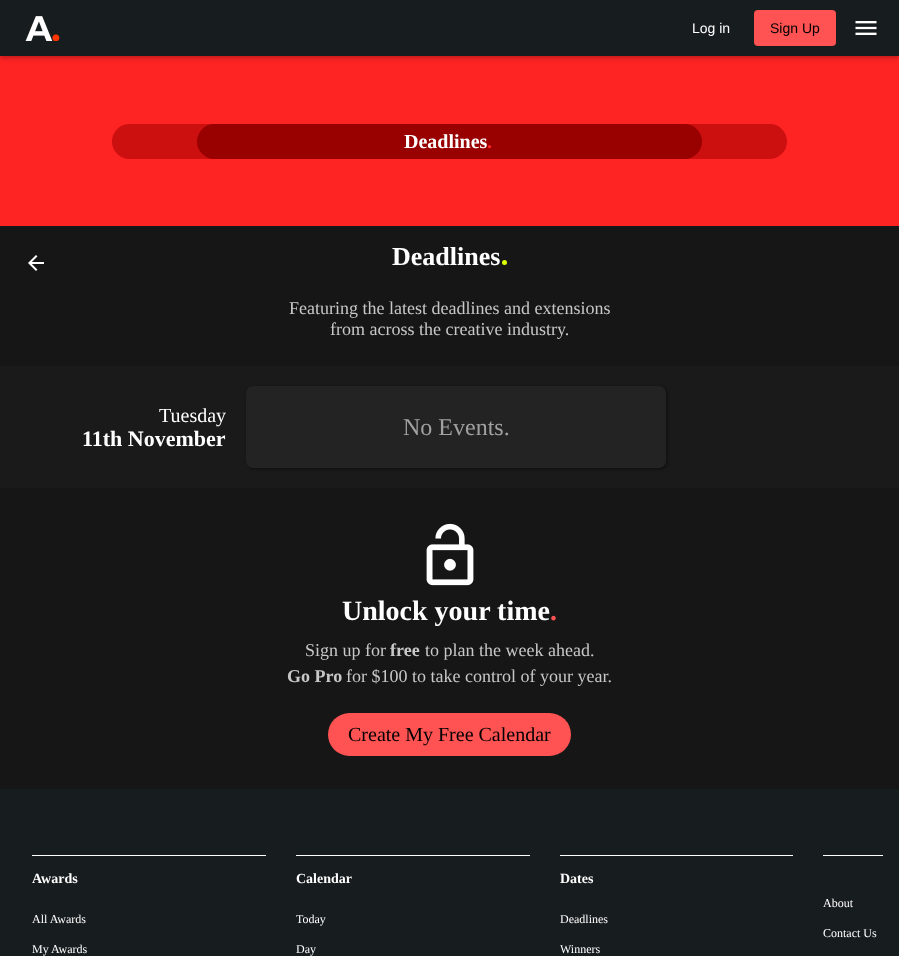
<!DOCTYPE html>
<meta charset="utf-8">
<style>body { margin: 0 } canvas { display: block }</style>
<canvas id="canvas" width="899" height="956"></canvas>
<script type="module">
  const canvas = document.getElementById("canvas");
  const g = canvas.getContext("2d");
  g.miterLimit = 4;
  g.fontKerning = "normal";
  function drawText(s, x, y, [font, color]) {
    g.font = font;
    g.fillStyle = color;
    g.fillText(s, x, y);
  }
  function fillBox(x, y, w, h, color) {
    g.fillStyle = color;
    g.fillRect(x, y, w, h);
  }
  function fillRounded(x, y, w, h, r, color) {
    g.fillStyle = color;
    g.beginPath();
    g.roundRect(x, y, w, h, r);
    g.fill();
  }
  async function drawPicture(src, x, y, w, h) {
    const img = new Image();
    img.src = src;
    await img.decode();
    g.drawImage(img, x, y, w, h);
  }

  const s1 = ["14px Liberation Sans", "#FFFFFF"];
  const s2 = ["14px Liberation Sans", "#000000"];
  const s3 = ["bold 20px Liberation Serif", "#FFFFFF"];
  const s4 = ["bold 20px Liberation Serif", "#FF2424"];
  const s5 = ["bold 26px Liberation Serif", "#FFFFFF"];
  const s6 = ["18px Liberation Serif", "#C8C8C8"];
  const s7 = ["20px Liberation Serif", "#FFFFFF"];
  const s8 = ["bold 22px Liberation Serif", "#FFFFFF"];
  const s9 = ["24px Liberation Serif", "#A1A1A1"];
  const s10 = ["bold 28px Liberation Serif", "#FFFFFF"];
  const s11 = ["bold 28px Liberation Serif", "#FF5252"];
  const s12 = ["bold 18px Liberation Serif", "#C8C8C8"];
  const s13 = ["20px Liberation Serif", "#000000"];
  const s14 = ["bold 14px Liberation Serif", "#FFFFFF"];
  const s15 = ["12px Liberation Serif", "#FFFFFF"];

  fillBox(0, 0, 899, 956, "#161616");
  fillBox(0, 56, 899, 170, "#FF2424");
  g.fillStyle = "rgba(0, 0, 0, 0.26)";
  g.filter = "blur(2.5px)";
  g.beginPath();
  g.rect(0, 2, 899, 56);
  g.fill();
  g.filter = "none";
  fillBox(0, 0, 899, 56, "#171C1E");
  await drawPicture("pic1.png", 25, 16, 35, 25);
  drawText("Log in", 692, 33, s1);
  fillRounded(754, 10, 82, 36, 4, "#FF5252");
  drawText("Sign Up", 770, 33, s2);
  await drawPicture("pic2.png", 855, 21, 22, 14);
  fillRounded(112, 124, 675, 35, 17.5, "#CC0F0F");
  fillRounded(197, 124, 505, 35, 17.5, "#990000");
  drawText("Deadlines", 404, 148, s3);
  drawText(".", 487, 148, s4);
  await drawPicture("pic3.png", 28, 255, 16, 16);
  drawText("Deadlines", 392, 265, s5);
  g.fillStyle = "#DBFF01";
  g.beginPath();
  g.arc(504.5, 262.5, 2.5, 0, Math.PI * 2);
  g.fill();
  drawText("Featuring the latest deadlines and extensions", 289, 314, s6);
  drawText("from across the creative industry.", 330, 335, s6);
  fillBox(0, 366, 899, 122, "#1A1A1A");
  drawText("Tuesday", 159, 422, s7);
  drawText("11th November", 82, 446, s8);
  g.fillStyle = "rgba(0, 0, 0, 0.48)";
  g.filter = "blur(1.5px)";
  g.beginPath();
  g.roundRect(247, 387, 420, 82, 7);
  g.fill();
  g.filter = "none";
  fillRounded(246, 386, 420, 82, 7, "#232323");
  drawText("No Events.", 403, 435, s9);
  await drawPicture("pic4.png", 426, 523, 48, 63);
  drawText("Unlock your time", 342, 620, s10);
  drawText(".", 550, 620, s11);
  drawText("Sign up for", 305, 656, s6);
  drawText("free", 390, 656, s12);
  drawText("to plan the week ahead.", 425, 656, s6);
  drawText("Go Pro", 287, 682, s12);
  drawText("for $100 to take control of your year.", 346, 682, s6);
  fillRounded(328, 713, 243, 43, 21.5, "#FF5252");
  drawText("Create My Free Calendar", 348, 741, s13);
  fillBox(0, 789, 899, 167, "#171C1E");
  fillBox(32, 855, 234, 1, "#FFFFFF");
  drawText("Awards", 32, 883, s14);
  drawText("All Awards", 32, 923, s15);
  drawText("My Awards", 32, 953, s15);
  fillBox(296, 855, 234, 1, "#FFFFFF");
  drawText("Calendar", 296, 883, s14);
  drawText("Today", 296, 923, s15);
  drawText("Day", 296, 953, s15);
  fillBox(560, 855, 233, 1, "#FFFFFF");
  drawText("Dates", 560, 883, s14);
  drawText("Deadlines", 560, 923, s15);
  drawText("Winners", 560, 953, s15);
  fillBox(823, 855, 60, 1, "#FFFFFF");
  drawText("About", 823, 907, s15);
  drawText("Contact Us", 823, 937, s15);
</script>
